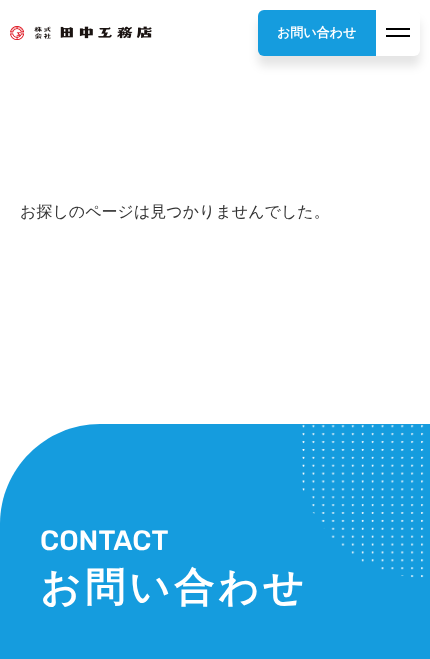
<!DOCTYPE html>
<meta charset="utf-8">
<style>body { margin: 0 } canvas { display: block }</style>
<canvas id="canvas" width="430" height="659"></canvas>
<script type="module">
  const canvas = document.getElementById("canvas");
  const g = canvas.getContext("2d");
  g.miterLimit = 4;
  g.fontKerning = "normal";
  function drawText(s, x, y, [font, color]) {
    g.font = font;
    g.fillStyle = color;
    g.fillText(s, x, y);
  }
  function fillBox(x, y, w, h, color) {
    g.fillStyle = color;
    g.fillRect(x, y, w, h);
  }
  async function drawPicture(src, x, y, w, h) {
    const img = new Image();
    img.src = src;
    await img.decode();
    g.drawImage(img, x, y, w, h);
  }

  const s1 = ["bold 13px WenQuanYi Zen Hei", "#FFFFFF"];
  const s2 = ["500 16px WenQuanYi Zen Hei", "#333333"];
  const s3 = ["500 28px Rubik", "#FFFFFF"];
  const s4 = ["bold 40px WenQuanYi Zen Hei", "#FFFFFF"];

  fillBox(0, 0, 430, 659, "#FFFFFF");
  await drawPicture("pic1.png", 10, 26, 142, 14);
  g.fillStyle = "rgba(0, 0, 0, 0.1)";
  g.filter = "blur(5px)";
  g.beginPath();
  g.roundRect(258, 20, 162, 46, 6);
  g.fill();
  g.filter = "none";
  g.fillStyle = "#159CDE";
  g.beginPath();
  g.roundRect(258, 10, 118, 46, [6, 0, 0, 6]);
  g.fill();
  drawText("お問い合わせ", 277, 37, s1);
  g.beginPath();
  g.roundRect(376, 10, 44, 46, [0, 6, 6, 0]);
  g.fill();
  fillBox(386, 28, 24, 2, "#000000");
  fillBox(386, 35, 24, 2, "#000000");
  drawText("お探しのページは見つかりませんでした。", 20, 217, s2);
  g.fillStyle = "#159CDE";
  g.beginPath();
  g.moveTo(100, 424);
  g.lineTo(430, 424);
  g.lineTo(430, 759);
  g.lineTo(0, 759);
  g.lineTo(0, 524);
  g.bezierCurveTo(0, 469, 45, 424, 100, 424);
  g.closePath();
  g.fill();
  drawText("CONTACT", 40, 550, s3);
  g.letterSpacing = "4px";
  drawText("お問い合わせ", 40, 601, s4);
  await drawPicture("pic2.png", 302, 424, 122, 154);
</script>
